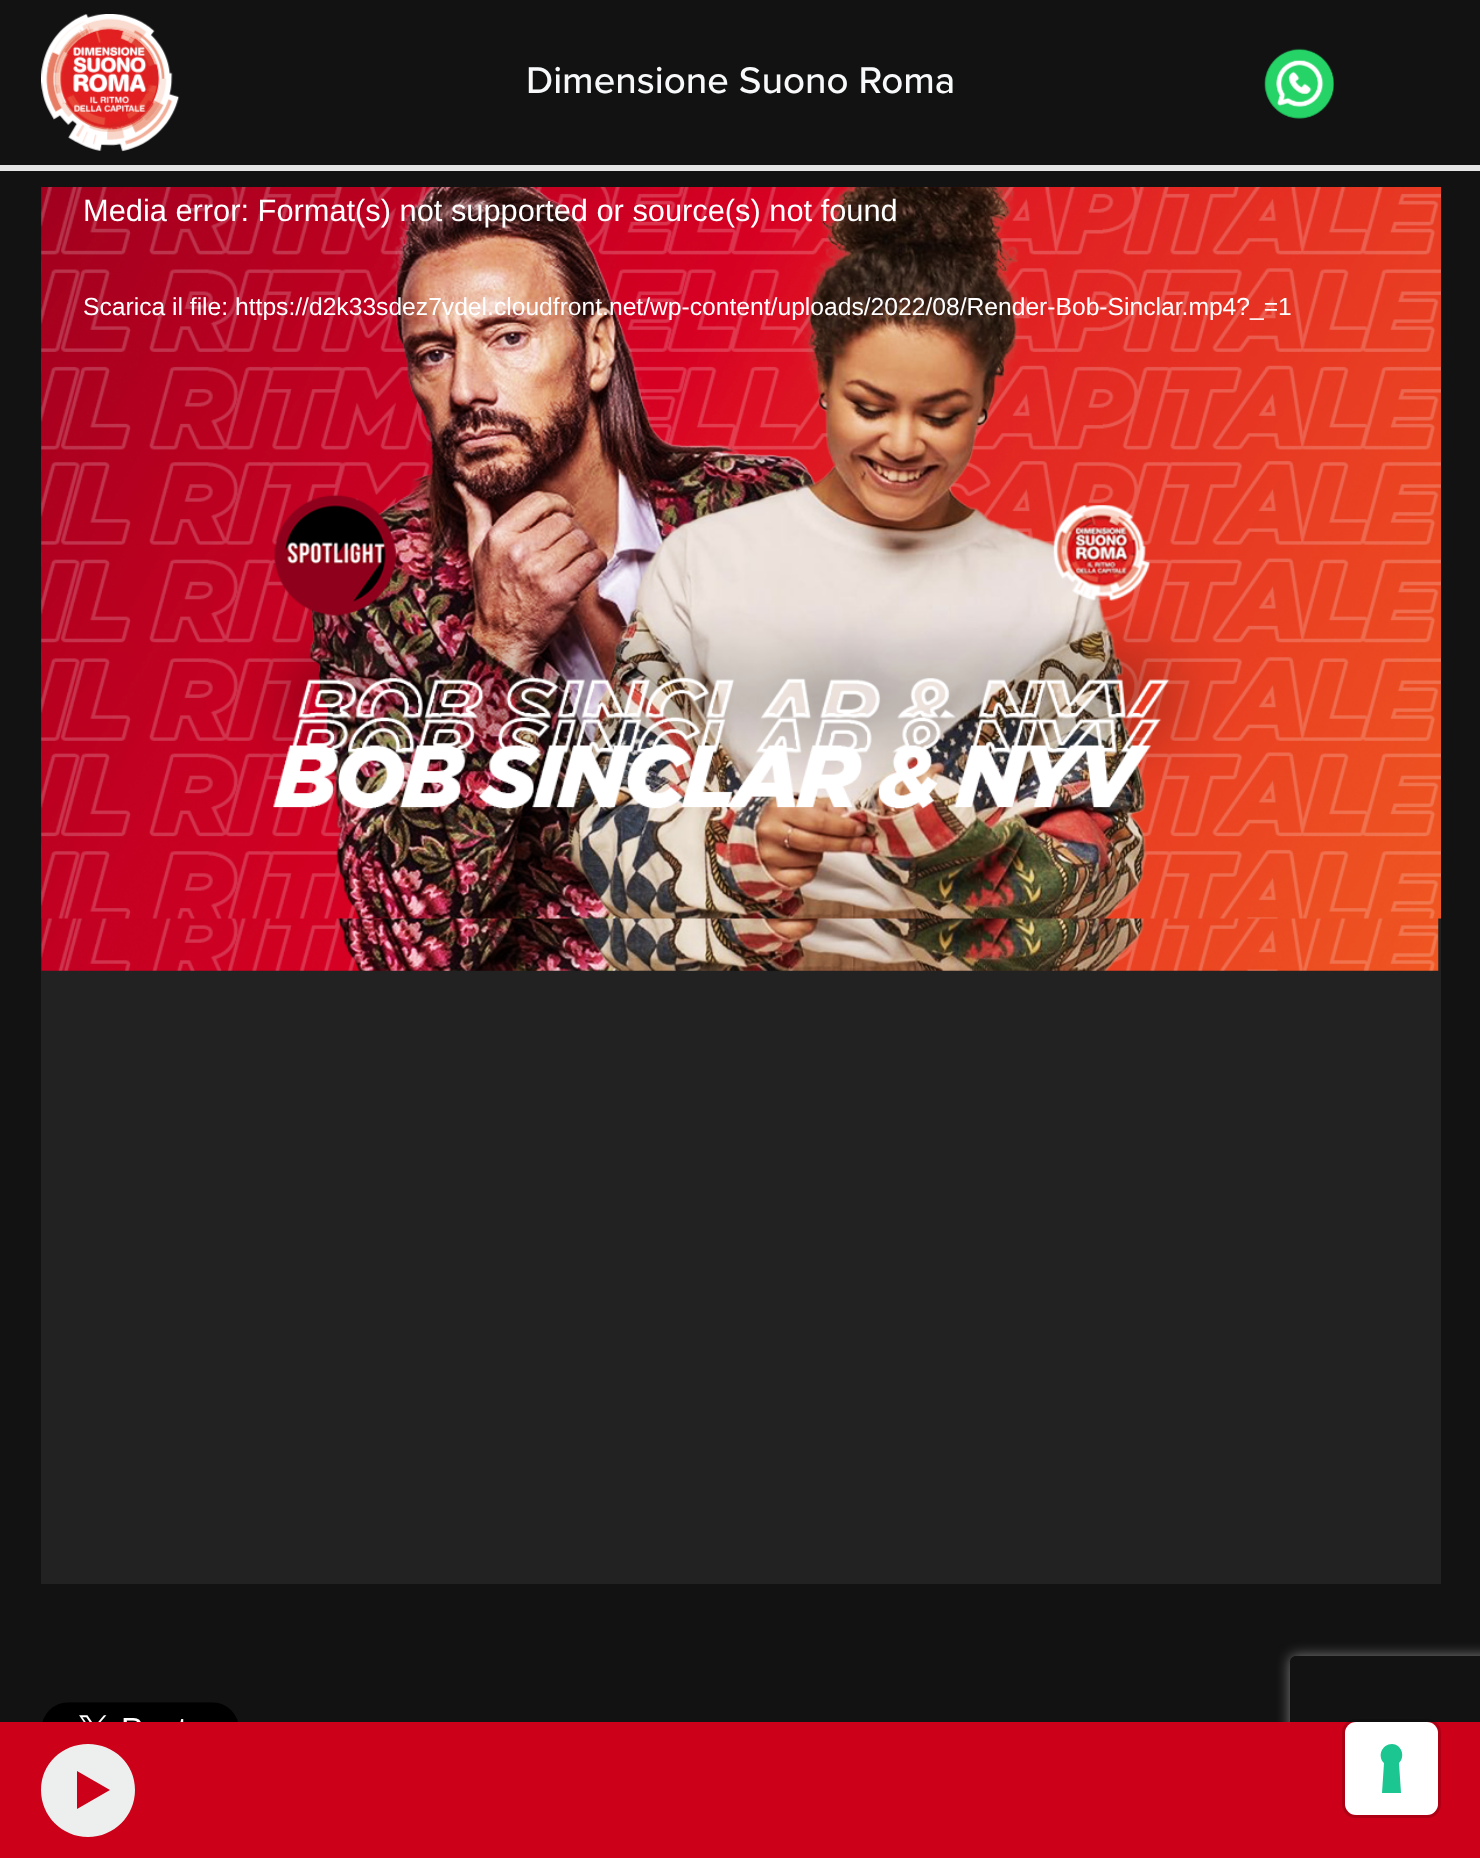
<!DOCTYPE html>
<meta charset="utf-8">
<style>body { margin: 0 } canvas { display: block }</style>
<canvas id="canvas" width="1480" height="1858"></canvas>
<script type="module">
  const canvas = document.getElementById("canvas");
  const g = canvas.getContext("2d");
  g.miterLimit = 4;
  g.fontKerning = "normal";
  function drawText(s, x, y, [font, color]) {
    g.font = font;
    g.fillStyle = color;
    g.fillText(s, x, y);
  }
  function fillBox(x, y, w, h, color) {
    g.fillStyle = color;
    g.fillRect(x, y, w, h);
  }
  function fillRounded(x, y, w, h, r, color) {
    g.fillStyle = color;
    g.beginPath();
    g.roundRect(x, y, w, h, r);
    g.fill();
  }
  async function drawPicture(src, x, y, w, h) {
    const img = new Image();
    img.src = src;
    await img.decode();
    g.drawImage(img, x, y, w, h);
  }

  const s1 = ["500 38.5px Proxima Nova", "#F8F9FA"];
  const s2 = ["30.8px Liberation Sans", "#FFFFFF"];
  const s3 = ["24.65px Liberation Sans", "#FFFFFF"];

  fillBox(0, 0, 1480, 1858, "#121212");
  fillBox(0, 165, 1480, 6, "#E5E5E5");
  await drawPicture("pic1.png", 41, 14, 139, 138);
  drawText("Dimensione Suono Roma", 526, 93, s1);
  await drawPicture("pic2.png", 1264, 48, 70, 71);
  fillBox(41, 187, 1400, 1397, "#222222");
  await drawPicture("pic4.png", 41, 236, 1398, 735);
  await drawPicture("pic3.png", 41, 187, 1400, 732);
  drawText("Media error: Format(s) not supported or source(s) not found", 83, 221, s2);
  drawText("Scarica il file: https://d2k33sdez7vdel.cloudfront.net/wp-content/uploads/2022/08/Render-Bob-Sinclar.mp4?_=1", 83, 315, s3);
  await drawPicture("pic5.png", 42, 1702, 196, 20);
  g.save();
  g.beginPath();
  g.moveTo(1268, 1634);
  g.lineTo(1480, 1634);
  g.lineTo(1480, 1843);
  g.lineTo(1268, 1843);
  g.closePath();
  g.moveTo(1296, 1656);
  g.lineTo(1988, 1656);
  g.bezierCurveTo(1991.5, 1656, 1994, 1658.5, 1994, 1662);
  g.lineTo(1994, 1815);
  g.bezierCurveTo(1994, 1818.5, 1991.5, 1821, 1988, 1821);
  g.lineTo(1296, 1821);
  g.bezierCurveTo(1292.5, 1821, 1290, 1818.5, 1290, 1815);
  g.lineTo(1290, 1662);
  g.bezierCurveTo(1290, 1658.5, 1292.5, 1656, 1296, 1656);
  g.closePath();
  g.clip("evenodd");
  g.fillStyle = "#808080";
  g.filter = "blur(7px)";
  g.beginPath();
  g.roundRect(1290, 1656, 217, 165, 6);
  g.fill();
  g.filter = "none";
  g.restore();
  fillBox(0, 1722, 1480, 136, "#CC0019");
  g.beginPath();
  g.roundRect(1343.5, 1720.5, 96, 96, 12.5);
  g.strokeStyle = "rgba(0, 0, 0, 0.15)";
  g.lineWidth = 3;
  g.stroke();
  fillRounded(1345, 1722, 93, 93, 11, "#FFFFFF");
  g.fillStyle = "#1CC691";
  g.beginPath();
  g.moveTo(1392, 1744);
  g.bezierCurveTo(1401, 1744, 1406, 1756, 1399, 1763);
  g.lineTo(1401, 1793);
  g.lineTo(1382, 1793);
  g.lineTo(1384, 1763);
  g.bezierCurveTo(1377, 1756, 1382, 1744, 1392, 1744);
  g.closePath();
  g.fill("evenodd");
  g.fillStyle = "#EDEFEE";
  g.beginPath();
  g.moveTo(88, 1744);
  g.bezierCurveTo(62, 1744, 41, 1764, 41, 1790);
  g.bezierCurveTo(41, 1816, 62, 1837, 88, 1837);
  g.bezierCurveTo(114, 1837, 135, 1816, 135, 1790);
  g.bezierCurveTo(135, 1764, 114, 1744, 88, 1744);
  g.closePath();
  g.moveTo(77, 1809);
  g.lineTo(77, 1771);
  g.lineTo(110, 1790);
  g.closePath();
  g.fill();
</script>
